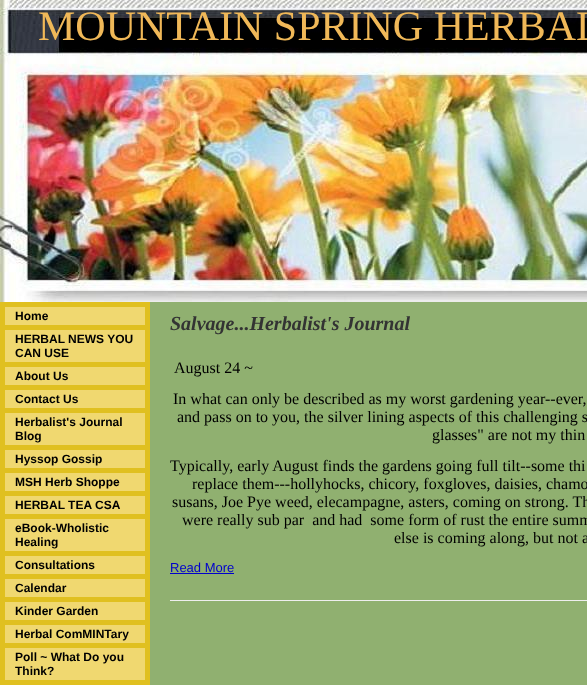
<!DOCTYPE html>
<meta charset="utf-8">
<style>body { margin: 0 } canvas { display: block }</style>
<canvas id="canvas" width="587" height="685"></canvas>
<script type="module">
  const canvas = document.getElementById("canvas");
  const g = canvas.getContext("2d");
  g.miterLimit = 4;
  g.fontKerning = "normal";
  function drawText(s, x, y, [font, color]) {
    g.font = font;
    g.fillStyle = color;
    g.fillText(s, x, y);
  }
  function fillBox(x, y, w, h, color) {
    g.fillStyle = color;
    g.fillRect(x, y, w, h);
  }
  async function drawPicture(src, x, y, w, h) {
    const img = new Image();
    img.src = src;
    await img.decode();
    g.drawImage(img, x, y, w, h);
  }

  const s1 = ["42px Liberation Serif", "#F0B858"];
  const s2 = ["bold 12px Liberation Sans", "#000000"];
  const s3 = ["italic bold 20px Liberation Serif", "#333333"];
  const s4 = ["16px Liberation Serif", "#000000"];
  const s5 = ["13px Liberation Sans", "#0000CC"];

  fillBox(0, 0, 587, 685, "#90B070");
  await drawPicture("pic1.png", 0, 0, 587, 302);
  drawText("MOUNTAIN SPRING HERBAL", 38, 40, s1);
  fillBox(0, 302, 150, 383, "#E0C020");
  fillBox(5, 307, 140, 18, "#F0D870");
  drawText("Home", 15, 320, s2);
  fillBox(5, 330, 140, 32, "#F0D870");
  drawText("HERBAL NEWS YOU", 15, 343, s2);
  drawText("CAN USE", 15, 357, s2);
  fillBox(5, 367, 140, 18, "#F0D870");
  drawText("About Us", 15, 380, s2);
  fillBox(5, 390, 140, 18, "#F0D870");
  drawText("Contact Us", 15, 403, s2);
  fillBox(5, 413, 140, 32, "#F0D870");
  drawText("Herbalist's Journal", 15, 426, s2);
  drawText("Blog", 15, 440, s2);
  fillBox(5, 450, 140, 18, "#F0D870");
  drawText("Hyssop Gossip", 15, 463, s2);
  fillBox(5, 473, 140, 18, "#F0D870");
  drawText("MSH Herb Shoppe", 15, 486, s2);
  fillBox(5, 496, 140, 18, "#F0D870");
  drawText("HERBAL TEA CSA", 15, 509, s2);
  fillBox(5, 519, 140, 32, "#F0D870");
  drawText("eBook-Wholistic", 15, 532, s2);
  drawText("Healing", 15, 546, s2);
  fillBox(5, 556, 140, 18, "#F0D870");
  drawText("Consultations", 15, 569, s2);
  fillBox(5, 579, 140, 18, "#F0D870");
  drawText("Calendar", 15, 592, s2);
  fillBox(5, 602, 140, 18, "#F0D870");
  drawText("Kinder Garden", 15, 615, s2);
  fillBox(5, 625, 140, 18, "#F0D870");
  drawText("Herbal ComMINTary", 15, 638, s2);
  fillBox(5, 648, 140, 32, "#F0D870");
  drawText("Poll ~ What Do you", 15, 661, s2);
  drawText("Think?", 15, 675, s2);
  drawText("Salvage...Herbalist's Journal", 170, 330, s3);
  drawText("August 24 ~", 174, 373, s4);
  drawText("In what can only be described as my worst gardening year--ever,", 173, 404, s4);
  drawText("and pass on to you, the silver lining aspects of this challenging s", 177, 422, s4);
  drawText("glasses\" are not my thin", 432, 440, s4);
  drawText("Typically, early August finds the gardens going full tilt--some thi", 170, 471, s4);
  drawText("replace them---hollyhocks, chicory, foxgloves, daisies, chamo", 192, 489, s4);
  drawText("susans, Joe Pye weed, elecampagne, asters, coming on strong. Th", 172, 507, s4);
  drawText("were really sub par  and had  some form of rust the entire summ", 182, 525, s4);
  drawText("else is coming along, but not a", 394, 543, s4);
  drawText("Read More", 170, 572, s5);
  fillBox(170, 573, 64, 1, "#0000CC");
  fillBox(170, 600, 417, 1, "#EEEEEE");
</script>
